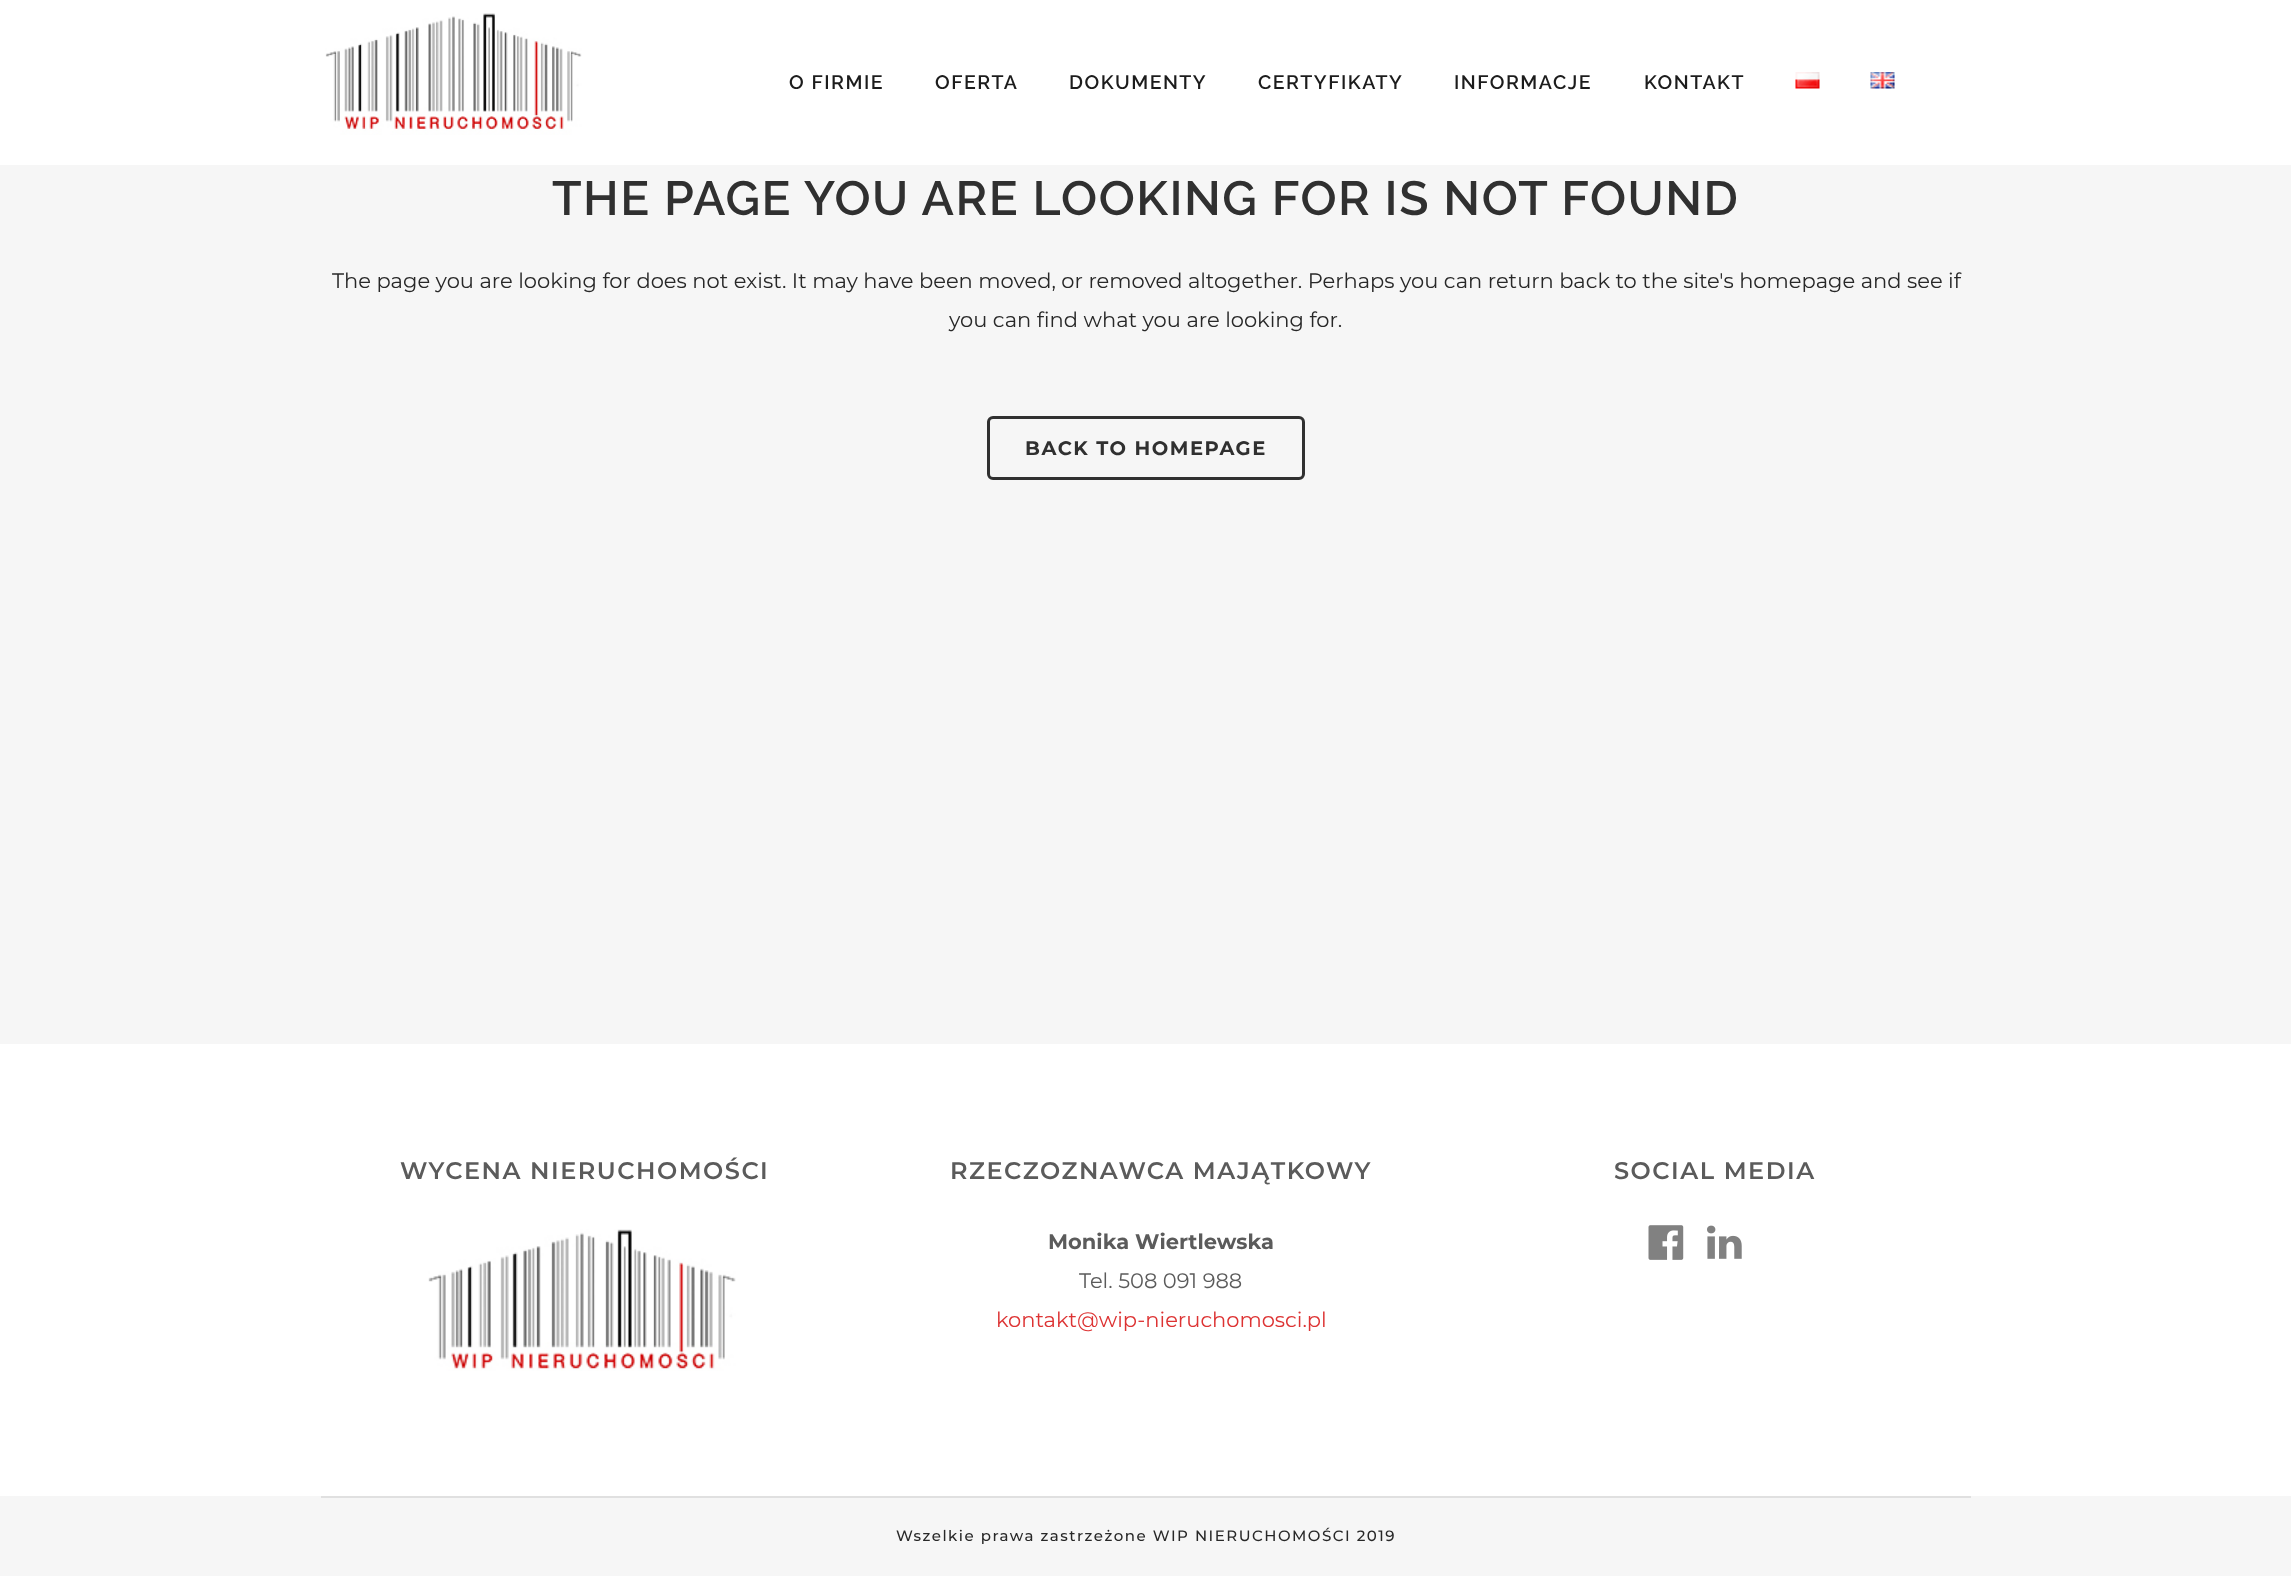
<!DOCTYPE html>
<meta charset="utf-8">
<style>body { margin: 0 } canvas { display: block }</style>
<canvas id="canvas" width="2291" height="1576"></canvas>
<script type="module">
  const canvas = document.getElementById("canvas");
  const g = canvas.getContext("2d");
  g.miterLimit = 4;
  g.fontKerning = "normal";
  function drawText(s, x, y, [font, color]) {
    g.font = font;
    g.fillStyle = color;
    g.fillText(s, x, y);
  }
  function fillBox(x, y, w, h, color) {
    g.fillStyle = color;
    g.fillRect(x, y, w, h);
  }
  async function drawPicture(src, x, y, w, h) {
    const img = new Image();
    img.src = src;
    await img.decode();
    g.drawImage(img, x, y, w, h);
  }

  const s1 = ["600 19.5px Raleway", "#1C1C1C"];
  const s2 = ["600 48px Raleway", "#303030"];
  const s3 = ["21px Montserrat", "#282828"];
  const s4 = ["bold 19.5px Montserrat", "#303030"];
  const s5 = ["600 24px Montserrat", "#5B5B5B"];
  const s6 = ["bold 21px Montserrat", "#5B5B5B"];
  const s7 = ["21px Montserrat", "#5B5B5B"];
  const s8 = ["21px Montserrat", "#DD3333"];
  const s9 = ["500 15px Montserrat", "#282828"];

  fillBox(0, 0, 2291, 1576, "#F6F6F6");
  fillBox(0, 0, 2291, 165, "#FFFFFF");
  await drawPicture("pic1.png", 325, 13, 257, 122);
  g.letterSpacing = "1.5px";
  drawText("O FIRMIE", 789, 89, s1);
  drawText("OFERTA", 935, 89, s1);
  drawText("DOKUMENTY", 1069, 89, s1);
  drawText("CERTYFIKATY", 1258, 89, s1);
  drawText("INFORMACJE", 1454, 89, s1);
  drawText("KONTAKT", 1644, 89, s1);
  await drawPicture("pic2.png", 1795, 72, 25, 17);
  await drawPicture("pic3.png", 1870, 72, 25, 17);
  drawText("THE PAGE YOU ARE LOOKING FOR IS NOT FOUND", 552, 215, s2);
  g.letterSpacing = "0px";
  drawText("The page you are looking for does not exist. It may have been moved, or removed altogether. Perhaps you can return back to the site's homepage and see if", 332, 288, s3);
  drawText("you can find what you are looking for.", 949, 327, s3);
  g.beginPath();
  g.roundRect(988.5, 417.5, 315, 61, 4.5);
  g.strokeStyle = "#303030";
  g.lineWidth = 3;
  g.stroke();
  g.letterSpacing = "1.5px";
  drawText("BACK TO HOMEPAGE", 1025, 455, s4);
  fillBox(0, 1044, 2291, 452, "#FFFFFF");
  drawText("WYCENA NIERUCHOMOŚCI", 400, 1179, s5);
  await drawPicture("pic4.png", 428, 1229, 308, 142);
  drawText("RZECZOZNAWCA MAJĄTKOWY", 950, 1179, s5);
  g.letterSpacing = "0px";
  drawText("Monika Wiertlewska", 1048, 1249, s6);
  drawText("Tel. 508 091 988", 1079, 1288, s7);
  drawText("kontakt@wip-nieruchomosci.pl", 996, 1327, s8);
  g.letterSpacing = "1.5px";
  drawText("SOCIAL MEDIA", 1614, 1179, s5);
  await drawPicture("pic5.png", 1648, 1225, 36, 35);
  await drawPicture("pic6.png", 1707, 1225, 35, 34);
  fillBox(321, 1496, 1650, 2, "#E0E0E0");
  drawText("Wszelkie prawa zastrzeżone WIP NIERUCHOMOŚCI 2019", 896, 1541, s9);
</script>
